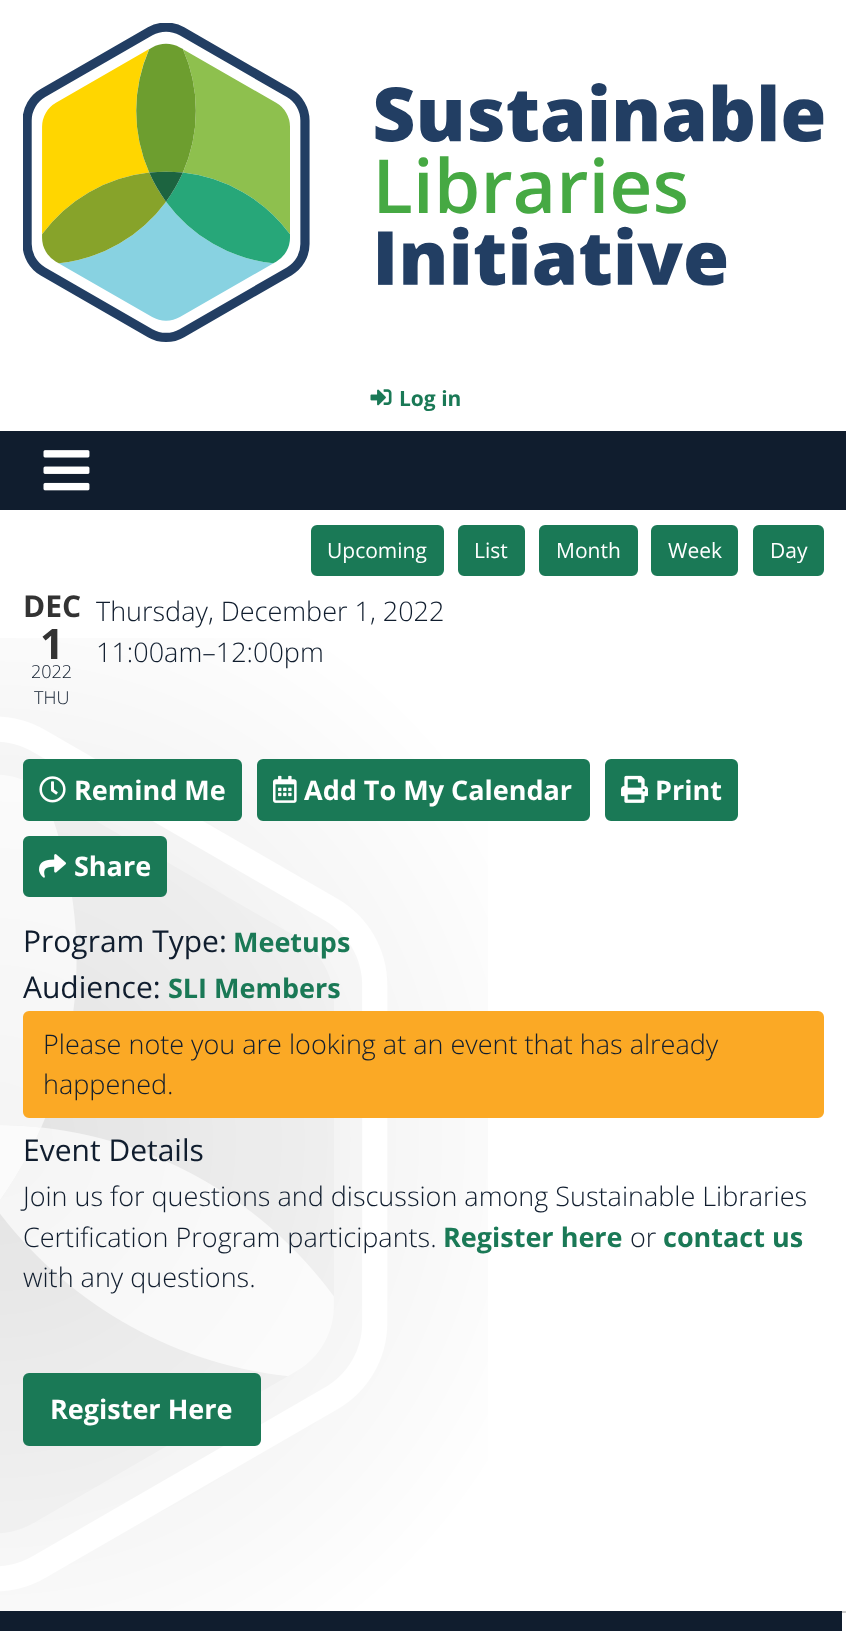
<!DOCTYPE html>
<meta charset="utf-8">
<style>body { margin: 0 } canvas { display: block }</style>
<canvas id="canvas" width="846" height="1631"></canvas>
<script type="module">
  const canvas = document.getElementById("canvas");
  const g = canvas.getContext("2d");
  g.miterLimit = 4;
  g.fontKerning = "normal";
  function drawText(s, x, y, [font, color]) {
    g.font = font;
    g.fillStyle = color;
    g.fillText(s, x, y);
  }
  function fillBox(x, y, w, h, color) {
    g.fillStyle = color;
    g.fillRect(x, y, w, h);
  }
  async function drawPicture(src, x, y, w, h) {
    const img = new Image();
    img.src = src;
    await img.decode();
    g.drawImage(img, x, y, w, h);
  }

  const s1 = ["bold 21px Open Sans", "#1A7956"];
  const s2 = ["21px Open Sans", "#FFFFFF"];
  const s3 = ["bold 30px Open Sans", "#333333"];
  const s4 = ["bold 42px Open Sans", "#333333"];
  const s5 = ["300 18px Open Sans", "#101D2E"];
  const s6 = ["300 27px Open Sans", "#101D2E"];
  const s7 = ["bold 27px Open Sans", "#FFFFFF"];
  const s8 = ["30px Open Sans", "#101D2E"];
  const s9 = ["bold 27px Open Sans", "#1A7956"];

  fillBox(0, 0, 846, 1631, "#FFFFFF");
  await drawPicture("pic1.png", 23, 23, 801, 319);
  await drawPicture("pic2.png", 370, 389, 22, 17);
  drawText("Log in", 399, 406, s1);
  fillBox(0, 431, 846, 79, "#101D2E");
  await drawPicture("pic3.png", 43, 450, 47, 41);
  await drawPicture("pic4.png", 0, 638, 488, 973);
  g.fillStyle = "#1A7956";
  g.beginPath();
  g.roundRect(312, 526, 131, 49, 5);
  g.fill();
  g.strokeStyle = "#1A7956";
  g.lineWidth = 2;
  g.stroke();
  drawText("Upcoming", 327, 558, s2);
  g.fillStyle = "#1A7956";
  g.beginPath();
  g.roundRect(459, 526, 65, 49, 5);
  g.fill();
  g.stroke();
  drawText("List", 474, 558, s2);
  g.fillStyle = "#1A7956";
  g.beginPath();
  g.roundRect(540, 526, 97, 49, 5);
  g.fill();
  g.stroke();
  drawText("Month", 556, 558, s2);
  g.fillStyle = "#1A7956";
  g.beginPath();
  g.roundRect(652, 526, 85, 49, 5);
  g.fill();
  g.stroke();
  drawText("Week", 668, 558, s2);
  g.fillStyle = "#1A7956";
  g.beginPath();
  g.roundRect(754, 526, 69, 49, 5);
  g.fill();
  g.stroke();
  drawText("Day", 770, 558, s2);
  drawText("DEC", 23, 617, s3);
  drawText("1", 40, 659, s4);
  drawText("2022", 31, 678, s5);
  drawText("THU", 34, 704, s5);
  drawText("Thursday, December 1, 2022", 96, 621, s6);
  drawText("11:00am–12:00pm", 96, 662, s6);
  g.fillStyle = "#1A7956";
  g.beginPath();
  g.roundRect(24, 760, 217, 60, 5);
  g.fill();
  g.stroke();
  await drawPicture("pic5.png", 39, 776, 27, 27);
  drawText("Remind Me", 74, 800, s7);
  g.fillStyle = "#1A7956";
  g.beginPath();
  g.roundRect(258, 760, 331, 60, 5);
  g.fill();
  g.stroke();
  await drawPicture("pic6.png", 273, 775, 24, 28);
  drawText("Add To My Calendar", 304, 800, s7);
  g.fillStyle = "#1A7956";
  g.beginPath();
  g.roundRect(606, 760, 131, 60, 5);
  g.fill();
  g.stroke();
  await drawPicture("pic7.png", 621, 775, 27, 28);
  drawText("Print", 655, 800, s7);
  g.fillStyle = "#1A7956";
  g.beginPath();
  g.roundRect(24, 837, 142, 59, 5);
  g.fill();
  g.stroke();
  await drawPicture("pic8.png", 39, 854, 27, 24);
  drawText("Share", 74, 876, s7);
  drawText("Program Type:", 23, 952, s8);
  drawText("Meetups", 233, 952, s9);
  drawText("Audience:", 23, 998, s8);
  drawText("SLI Members", 168, 998, s9);
  g.fillStyle = "#FBA925";
  g.beginPath();
  g.roundRect(24, 1012, 799, 105, 5);
  g.fill();
  g.strokeStyle = "#FBA925";
  g.stroke();
  drawText("Please note you are looking at an event that has already", 43, 1054, s6);
  drawText("happened.", 43, 1094, s6);
  drawText("Event Details", 23, 1161, s8);
  drawText("Join us for questions and discussion among Sustainable Libraries", 23, 1206, s6);
  drawText("Certification Program participants.", 23, 1247, s6);
  drawText("Register here", 443, 1247, s9);
  drawText("or", 630, 1247, s6);
  drawText("contact us", 663, 1247, s9);
  drawText("with any questions.", 23, 1287, s6);
  g.fillStyle = "#1A7956";
  g.beginPath();
  g.roundRect(24, 1374, 236, 71, 5);
  g.fill();
  g.strokeStyle = "#1A7956";
  g.stroke();
  drawText("Register Here", 50, 1419, s7);
  fillBox(842, 1611, 4, 2, "#CCCCCC");
  fillBox(0, 1611, 842, 20, "#101D2E");
</script>
